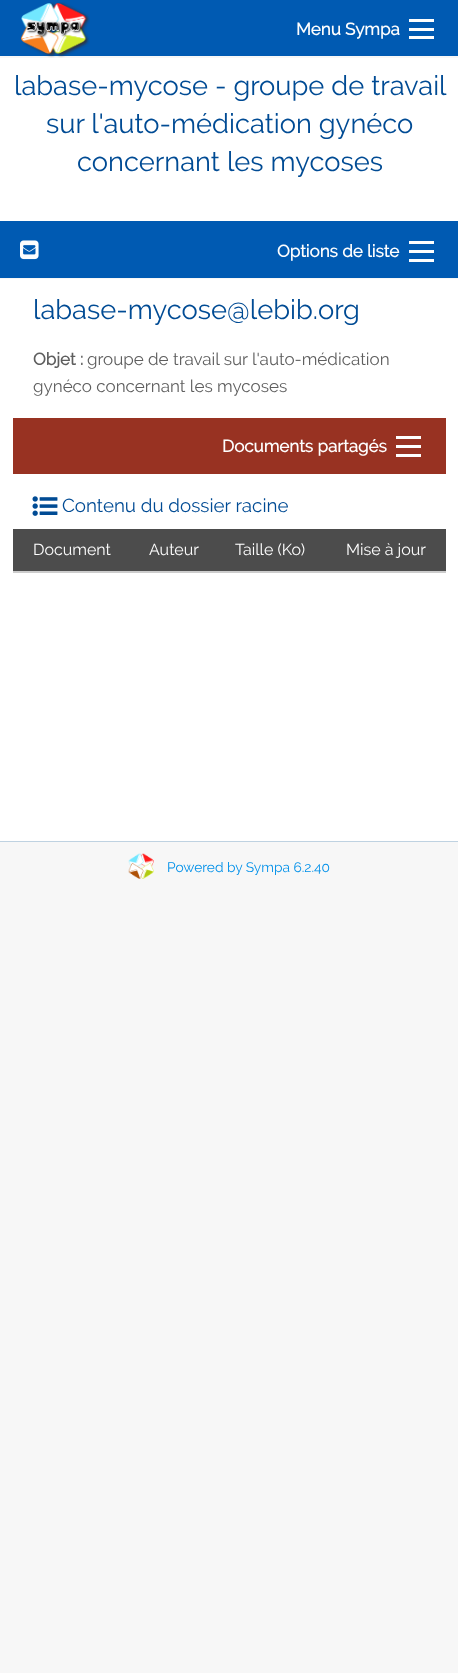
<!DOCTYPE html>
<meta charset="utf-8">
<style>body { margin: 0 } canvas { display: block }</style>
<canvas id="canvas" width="458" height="1673"></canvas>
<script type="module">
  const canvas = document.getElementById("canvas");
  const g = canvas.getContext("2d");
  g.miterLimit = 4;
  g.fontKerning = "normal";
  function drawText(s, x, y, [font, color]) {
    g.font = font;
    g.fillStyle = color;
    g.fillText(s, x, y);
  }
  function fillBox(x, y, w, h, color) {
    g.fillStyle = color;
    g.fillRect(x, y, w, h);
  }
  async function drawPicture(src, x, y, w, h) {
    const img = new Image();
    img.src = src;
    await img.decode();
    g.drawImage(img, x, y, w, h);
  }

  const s1 = ["bold 17px Raleway", "#FEFEFE"];
  const s2 = ["27.25px Raleway", "#004B94"];
  const s3 = ["bold 17px Raleway", "#5E5E5E"];
  const s4 = ["17px Raleway", "#5E5E5E"];
  const s5 = ["18.75px Raleway", "#004B94"];
  const s6 = ["16px Raleway", "#FEFEFE"];
  const s7 = ["13.75px Raleway", "#0090E9"];

  fillBox(0, 0, 458, 1673, "#F7F7F7");
  fillBox(0, 0, 458, 56, "#005AB2");
  await drawPicture("pic1.png", 20, 2, 70, 56);
  drawText("Menu Sympa", 296, 35, s1);
  fillBox(409, 36, 25, 3, "#FEFEFE");
  fillBox(409, 28, 25, 3, "#FEFEFE");
  fillBox(409, 19, 25, 3, "#FEFEFE");
  fillBox(0, 58, 458, 163, "#FFFFFF");
  drawText("labase-mycose - groupe de travail", 14, 95, s2);
  drawText("sur l'auto-médication gynéco", 46, 133, s2);
  drawText("concernant les mycoses", 77, 171, s2);
  fillBox(0, 221, 458, 57, "#005AB2");
  await drawPicture("pic2.png", 20, 240, 19, 20);
  drawText("Options de liste", 277, 257, s1);
  fillBox(409, 259, 25, 3, "#FEFEFE");
  fillBox(409, 250, 25, 3, "#FEFEFE");
  fillBox(409, 241, 25, 3, "#FEFEFE");
  fillBox(0, 279, 458, 562, "#FFFFFF");
  drawText("labase-mycose@lebib.org", 33, 319, s2);
  drawText("Objet :", 33, 365, s3);
  drawText("groupe de travail sur l'auto-médication", 87, 365, s4);
  drawText("gynéco concernant les mycoses", 33, 392, s4);
  fillBox(13, 418, 433, 56, "#983222");
  drawText("Documents partagés", 222, 452, s1);
  fillBox(396, 454, 25, 3, "#FEFEFE");
  fillBox(396, 445, 25, 3, "#FEFEFE");
  fillBox(396, 436, 25, 3, "#FEFEFE");
  await drawPicture("pic3.png", 32, 496, 26, 20);
  drawText("Contenu du dossier racine", 62, 512, s5);
  g.fillStyle = "#CCCCCC";
  g.filter = "blur(0.5px)";
  g.beginPath();
  g.rect(13, 530, 433, 43);
  g.fill();
  g.filter = "none";
  fillBox(13, 529, 433, 42, "#4C4C4C");
  drawText("Document", 33, 555, s6);
  drawText("Auteur", 149, 555, s6);
  drawText("Taille (Ko)", 235, 555, s6);
  drawText("Mise à jour", 346, 555, s6);
  fillBox(0, 841, 458, 1, "#BFD2E1");
  await drawPicture("pic4.png", 128, 853, 26, 26);
  drawText("Powered by Sympa 6.2.40", 167, 872, s7);
</script>
